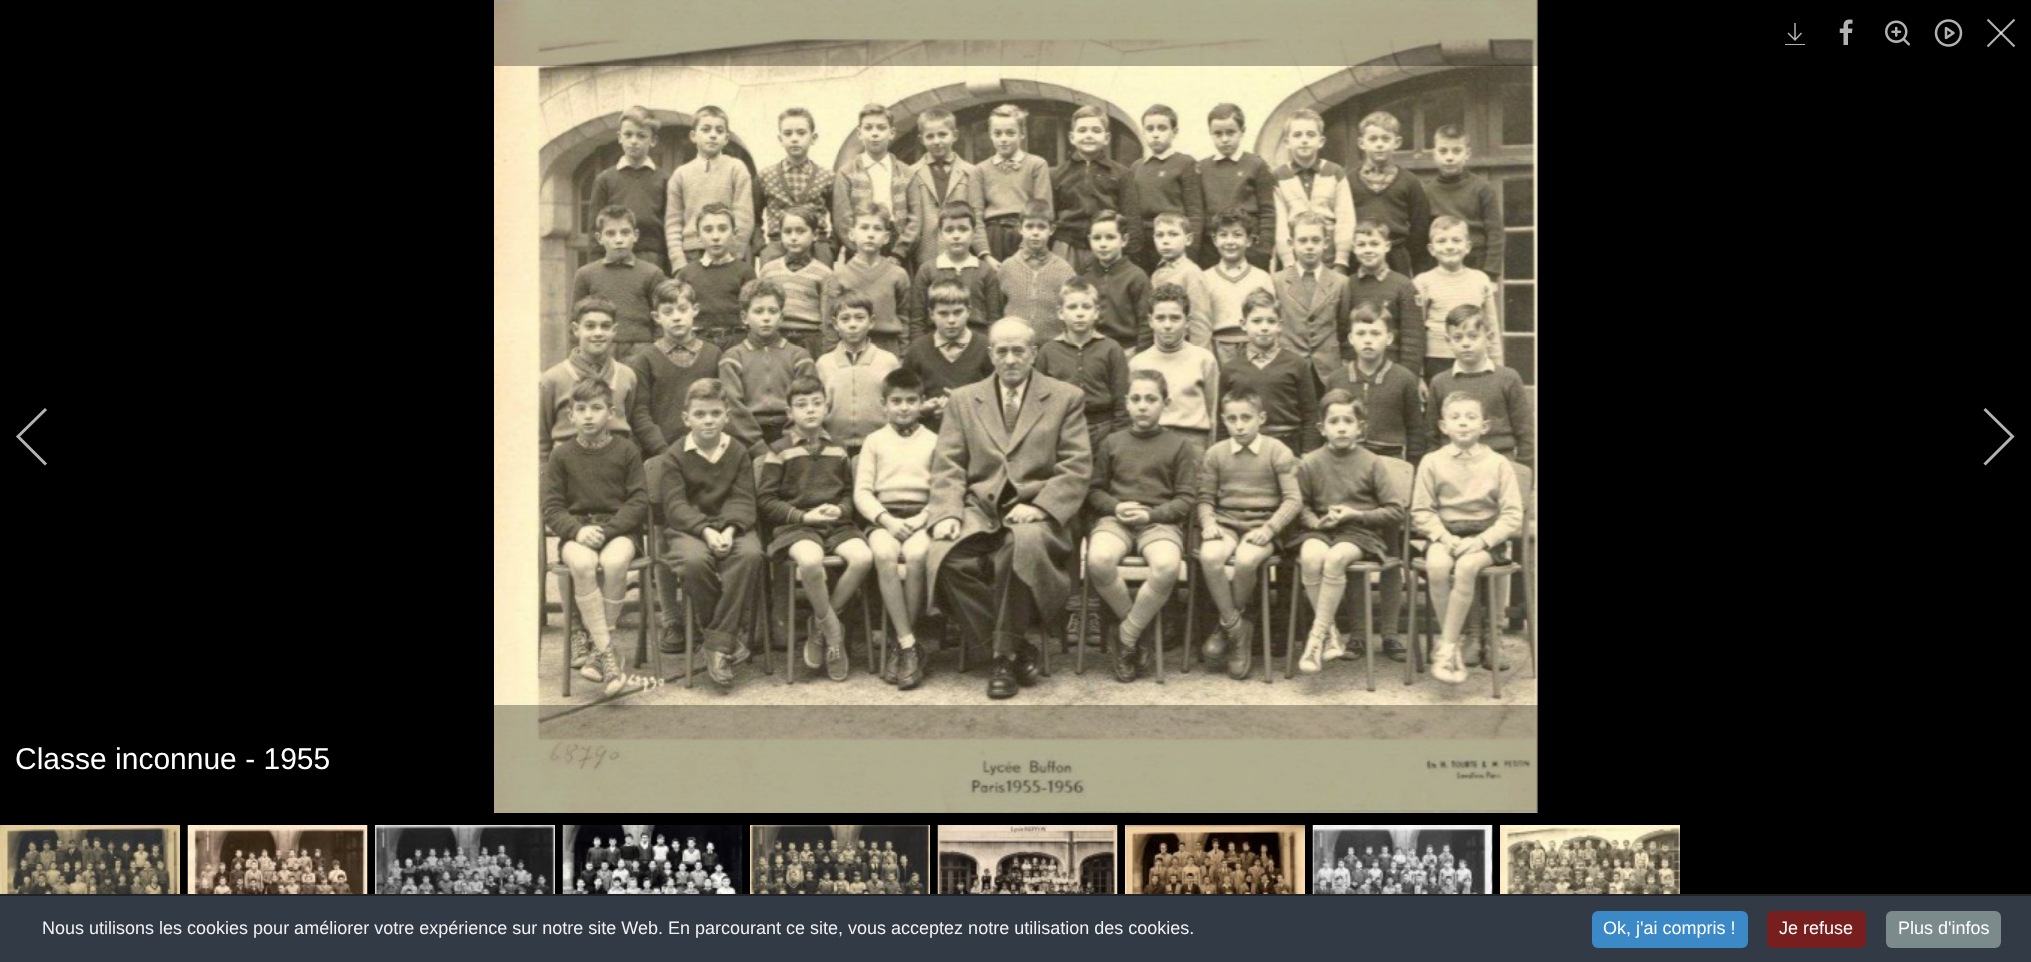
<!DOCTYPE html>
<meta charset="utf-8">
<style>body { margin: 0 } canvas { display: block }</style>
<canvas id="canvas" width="2031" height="962"></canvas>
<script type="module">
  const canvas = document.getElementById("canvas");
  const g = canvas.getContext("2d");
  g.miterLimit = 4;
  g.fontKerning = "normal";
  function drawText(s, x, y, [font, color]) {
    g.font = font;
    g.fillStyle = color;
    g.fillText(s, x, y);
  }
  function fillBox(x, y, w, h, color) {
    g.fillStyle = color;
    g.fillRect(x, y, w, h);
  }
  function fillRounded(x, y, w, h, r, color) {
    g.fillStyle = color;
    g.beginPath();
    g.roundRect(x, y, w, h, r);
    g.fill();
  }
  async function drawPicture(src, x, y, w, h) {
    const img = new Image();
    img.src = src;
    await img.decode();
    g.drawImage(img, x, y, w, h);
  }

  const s1 = ["30px Liberation Sans", "#FFFFFF"];
  const s2 = ["18px Liberation Sans", "#F1F1F3"];
  const s3 = ["18px Liberation Sans", "#FFFFFF"];

  fillBox(0, 0, 2031, 962, "#000000");
  await drawPicture("pic1.png", 494, 0, 1044, 813);
  fillBox(494, 0, 1044, 66, "rgba(0, 0, 0, 0.3)");
  g.beginPath();
  g.moveTo(1801.5, 33);
  g.lineTo(1795, 40);
  g.lineTo(1788, 33);
  g.strokeStyle = "#B3B3B3";
  g.lineWidth = 1.5;
  g.stroke();
  fillBox(1794, 23, 2, 16, "rgba(255, 255, 255, 0.52)");
  fillBox(1785, 44, 20, 1, "#B3B3B3");
  await drawPicture("pic2.png", 1839, 19, 14, 26);
  await drawPicture("pic3.png", 1885, 20, 25, 26);
  await drawPicture("pic4.png", 1934, 19, 29, 28);
  g.beginPath();
  g.moveTo(1987.5, 19.5);
  g.lineTo(2014.5, 46.5);
  g.lineWidth = 2.1;
  g.stroke();
  g.beginPath();
  g.moveTo(2014.5, 19.5);
  g.lineTo(1987.5, 46.5);
  g.strokeStyle = "rgba(255, 255, 255, 0.7)";
  g.stroke();
  g.beginPath();
  g.moveTo(46, 409);
  g.lineTo(18, 436.5);
  g.lineTo(46, 464.5);
  g.strokeStyle = "#B3B3B3";
  g.lineWidth = 3;
  g.stroke();
  g.beginPath();
  g.moveTo(1984.5, 464.5);
  g.lineTo(2012.5, 436.5);
  g.lineTo(1984.5, 409);
  g.stroke();
  fillBox(494, 705, 1044, 108, "rgba(0, 0, 0, 0.3)");
  drawText("Classe inconnue - 1955", 15, 769, s1);
  await drawPicture("pic5.png", 0, 825, 180, 69);
  await drawPicture("pic6.png", 187, 825, 181, 69);
  await drawPicture("pic7.png", 375, 825, 180, 69);
  await drawPicture("pic8.png", 562, 825, 181, 69);
  await drawPicture("pic9.png", 750, 825, 180, 69);
  await drawPicture("pic10.png", 937, 825, 181, 69);
  await drawPicture("pic11.png", 1125, 825, 180, 69);
  await drawPicture("pic12.png", 1312, 825, 181, 69);
  await drawPicture("pic13.png", 1500, 825, 180, 69);
  fillBox(0, 896, 2031, 66, "#323A45");
  fillBox(0, 894, 2031, 2, "#202226");
  drawText("Nous utilisons les cookies pour améliorer votre expérience sur notre site Web. En parcourant ce site, vous acceptez notre utilisation des cookies.", 42, 934, s2);
  fillRounded(1592, 911, 156, 37, 6, "#3B89C7");
  drawText("Ok, j'ai compris !", 1603, 934, s3);
  fillRounded(1767, 911, 99, 37, 6, "#771F1F");
  drawText("Je refuse", 1779, 934, s3);
  fillRounded(1886, 911, 115, 37, 6, "#7B8A8B");
  drawText("Plus d'infos", 1898, 934, s3);
</script>
